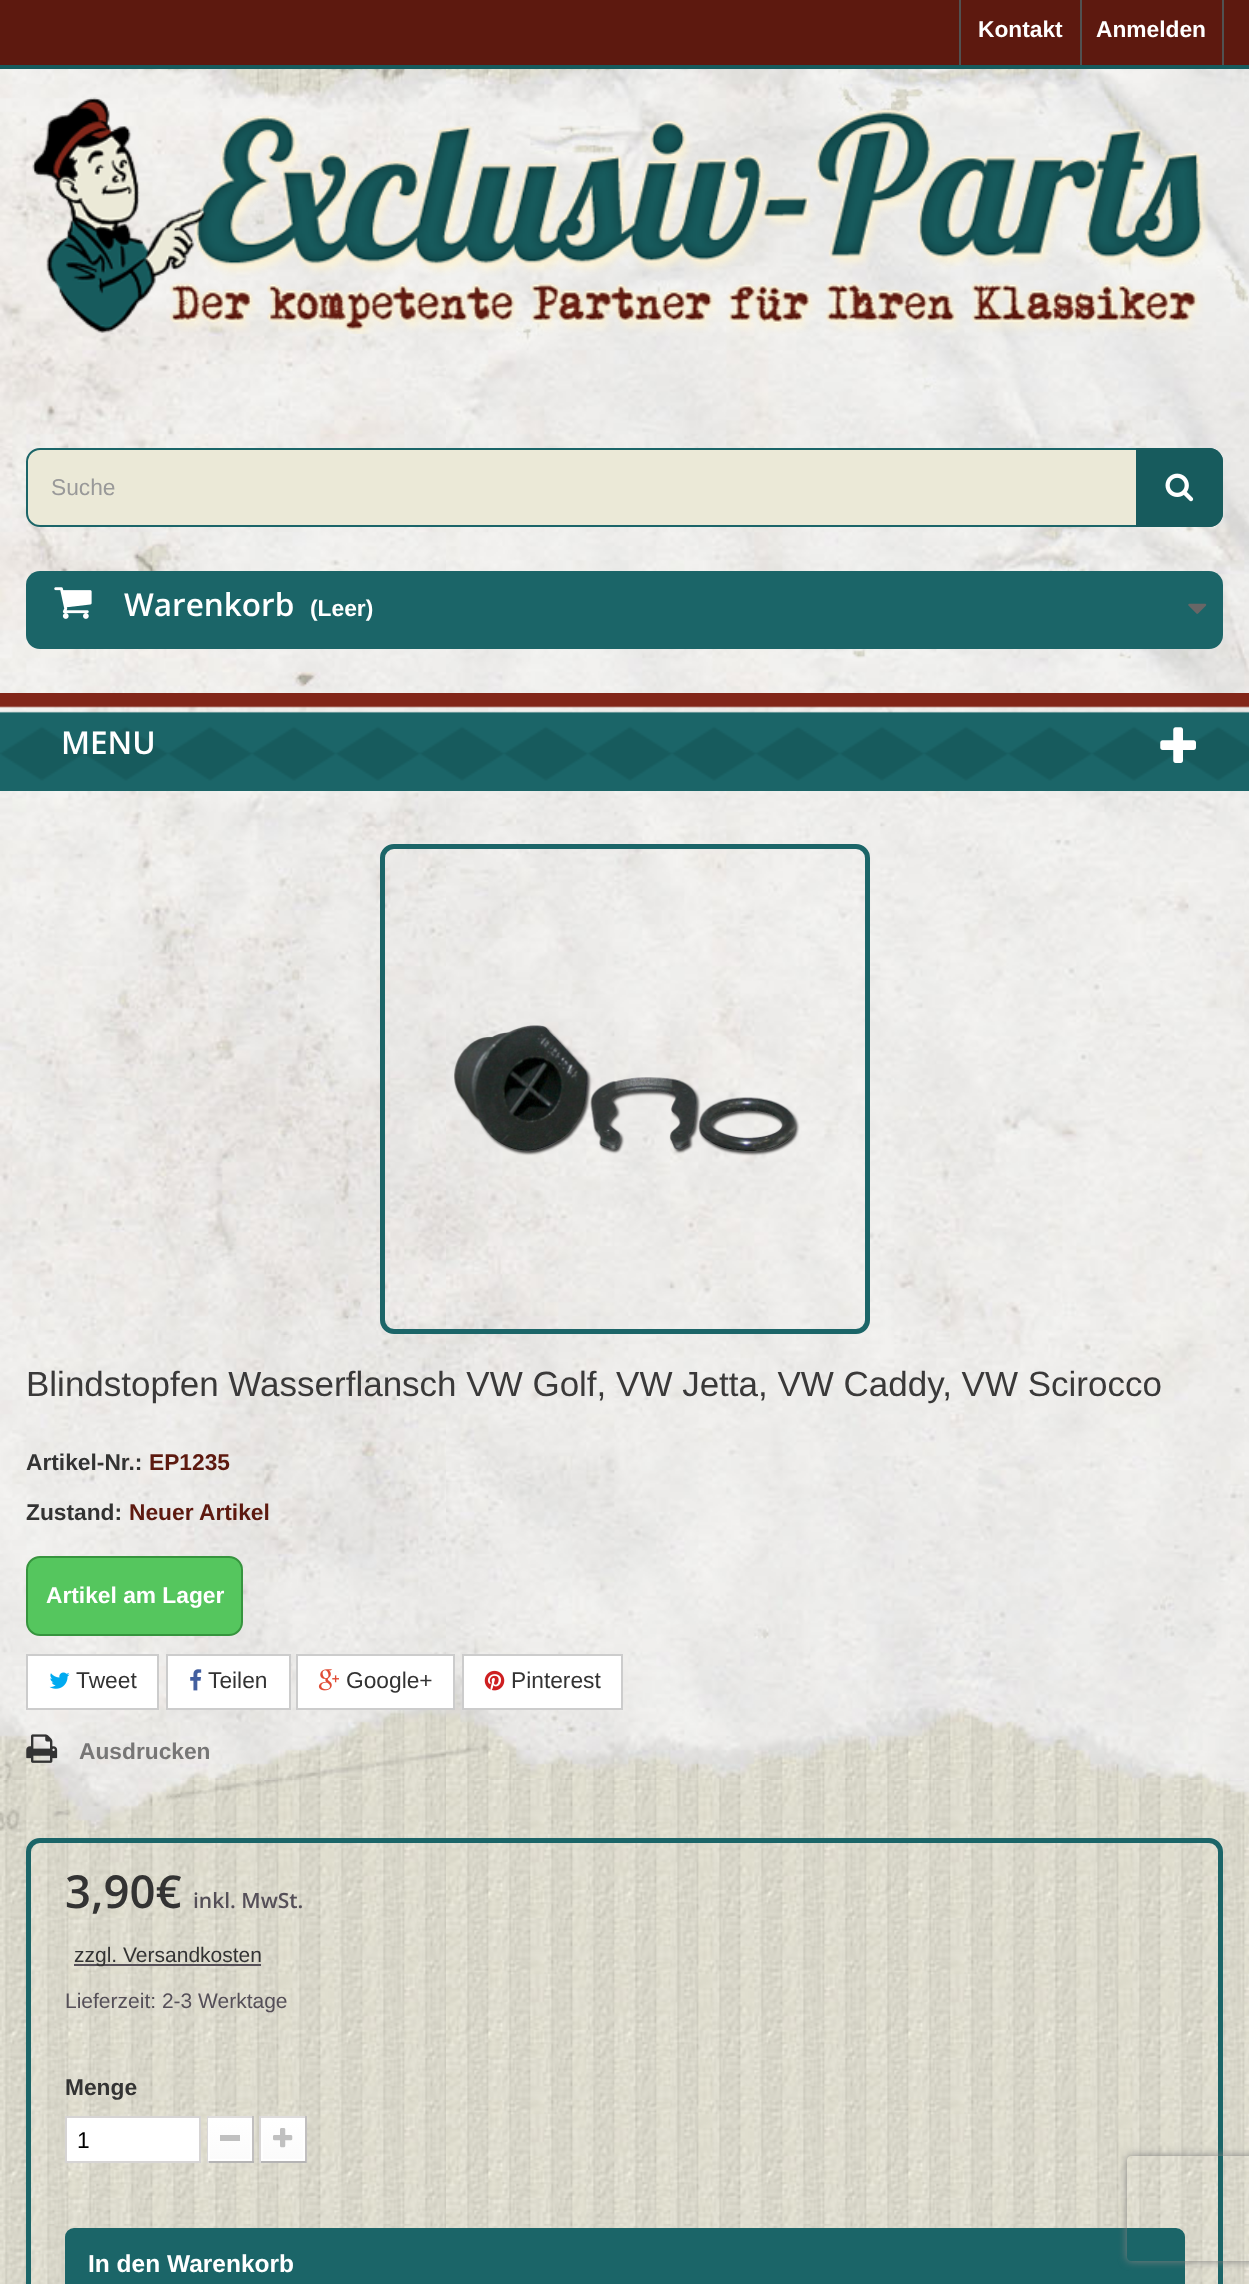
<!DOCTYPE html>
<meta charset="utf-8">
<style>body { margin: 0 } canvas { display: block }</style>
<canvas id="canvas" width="1249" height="2284"></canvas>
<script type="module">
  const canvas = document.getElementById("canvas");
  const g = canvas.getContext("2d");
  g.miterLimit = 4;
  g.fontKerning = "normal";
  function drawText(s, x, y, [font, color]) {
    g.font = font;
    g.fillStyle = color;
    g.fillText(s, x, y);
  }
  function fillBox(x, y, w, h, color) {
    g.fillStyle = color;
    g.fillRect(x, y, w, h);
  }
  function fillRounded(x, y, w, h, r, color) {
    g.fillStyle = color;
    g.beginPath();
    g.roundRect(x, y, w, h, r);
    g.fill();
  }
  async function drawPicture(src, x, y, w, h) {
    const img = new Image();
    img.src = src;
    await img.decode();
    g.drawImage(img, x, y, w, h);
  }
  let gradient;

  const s1 = ["bold 22.75px Liberation Sans", "#FFFFFF"];
  const s2 = ["22.75px Liberation Sans", "#999999"];
  const s3 = ["600 31.5px Open Sans", "#FFFFFF"];
  const s4 = ["35px Liberation Sans", "#3A3939"];
  const s5 = ["bold 22.75px Liberation Sans", "#333333"];
  const s6 = ["bold 22.75px Liberation Sans", "#5D190F"];
  const s7 = ["22.75px Liberation Sans", "#333333"];
  const s8 = ["bold 22.75px Liberation Sans", "#777676"];
  const s9 = ["600 45.5px Open Sans", "#333333"];
  const s10 = ["600 21px Open Sans", "#554F58"];
  const s11 = ["21px Liberation Sans", "#333333"];
  const s12 = ["21px Liberation Sans", "#554F58"];
  const s13 = ["22.75px Liberation Sans", "#000000"];
  const s14 = ["bold 24.5px Liberation Sans", "#FFFFFF"];

  fillBox(0, 0, 1249, 2284, "#FFFFFF");
  await drawPicture("pic1.png", 0, 69, 1249, 2215);
  fillBox(0, 0, 1249, 65, "#5D190F");
  fillBox(0, 65, 1249, 4, "#175B5D");
  fillBox(959, 0, 2, 65, "#515151");
  drawText("Kontakt", 978, 37, s1);
  fillBox(1222, 0, 2, 65, "#515151");
  fillBox(1080, 0, 2, 65, "#515151");
  drawText("Anmelden", 1096, 37, s1);
  await drawPicture("pic2.png", 32, 97, 1176, 237);
  g.fillStyle = "#EBE9D7";
  g.beginPath();
  g.roundRect(27, 449, 1195, 77, 13);
  g.fill();
  g.strokeStyle = "#1B6568";
  g.lineWidth = 2;
  g.stroke();
  drawText("Suche", 51, 495, s2);
  g.fillStyle = "#175B5D";
  g.beginPath();
  g.roundRect(1136, 448, 87, 79, [0, 14, 14, 0]);
  g.fill();
  await drawPicture("pic3.png", 1165, 473, 29, 29);
  fillRounded(26, 571, 1197, 78, 14, "#1B6568");
  await drawPicture("pic4.png", 54, 587, 38, 32);
  drawText("Warenkorb", 124, 616, s3);
  drawText("(Leer)", 310, 616, s1);
  await drawPicture("pic5.png", 1188, 603, 19, 11);
  await drawPicture("pic6.png", 0, 693, 1249, 98);
  drawText("MENU", 61, 754, s3);
  await drawPicture("pic7.png", 1160, 727, 36, 36);
  g.beginPath();
  g.roundRect(382.5, 846.5, 485, 485, 11.5);
  g.lineWidth = 5;
  g.stroke();
  await drawPicture("pic8.png", 454, 1025, 346, 131);
  drawText("Blindstopfen Wasserflansch VW Golf, VW Jetta, VW Caddy, VW Scirocco", 26, 1396, s4);
  drawText("Artikel-Nr.:", 26, 1470, s5);
  drawText("EP1235", 149, 1470, s6);
  drawText("Zustand:", 26, 1520, s5);
  drawText("Neuer Artikel", 129, 1520, s6);
  g.fillStyle = "#55C65E";
  g.beginPath();
  g.roundRect(27, 1557, 215, 78, 13);
  g.fill();
  g.strokeStyle = "#36943E";
  g.lineWidth = 2;
  g.stroke();
  drawText("Artikel am Lager", 46, 1603, s1);
  g.beginPath();
  g.rect(27, 1655, 131, 54);
  g.fill();
  g.strokeStyle = "#CCCCCC";
  g.stroke();
  await drawPicture("pic9.png", 49, 1672, 21, 17);
  drawText("Tweet", 76, 1688, s7);
  g.fillStyle = "#FFFFFF";
  g.beginPath();
  g.rect(167, 1655, 123, 54);
  g.fill();
  g.stroke();
  await drawPicture("pic10.png", 190, 1669, 12, 22);
  drawText("Teilen", 208, 1688, s7);
  g.fillStyle = "#FFFFFF";
  g.beginPath();
  g.rect(297, 1655, 157, 54);
  g.fill();
  g.stroke();
  await drawPicture("pic11.png", 318, 1669, 21, 22);
  drawText("Google+", 346, 1688, s7);
  g.fillStyle = "#FFFFFF";
  g.beginPath();
  g.rect(463, 1655, 159, 54);
  g.fill();
  g.stroke();
  await drawPicture("pic12.png", 484, 1670, 21, 21);
  drawText("Pinterest", 511, 1688, s7);
  await drawPicture("pic13.png", 26, 1734, 32, 29);
  drawText("Ausdrucken", 79, 1759, s8);
  g.beginPath();
  g.roundRect(28.5, 1840.5, 1192, 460, 11.5);
  g.strokeStyle = "#1B6568";
  g.lineWidth = 5;
  g.stroke();
  drawText("3,90€", 65, 1908, s9);
  drawText("inkl. MwSt.", 193, 1908, s10);
  fillBox(74, 1964, 187, 2, "#554F58");
  drawText("zzgl. Versandkosten", 74, 1962, s11);
  drawText("Lieferzeit: 2-3 Werktage", 65, 2008, s12);
  drawText("Menge", 65, 2095, s5);
  g.fillStyle = "#FFFFFF";
  g.beginPath();
  g.rect(66, 2117, 134, 45);
  g.fill();
  g.strokeStyle = "#D6D4D4";
  g.lineWidth = 2;
  g.stroke();
  drawText("1", 77, 2148, s13);
  fillBox(207, 2116, 47, 2, "#DEDCDC");
  fillBox(252, 2116, 2, 47, "#C1BFBF");
  fillBox(207, 2161, 47, 2, "#B5B4B4");
  fillBox(207, 2116, 2, 47, "#DAD8D8");
  gradient = g.createLinearGradient(230, 2119, 230, 2160);
  gradient.addColorStop(0, "#FFFFFF");
  gradient.addColorStop(1, "#FBFBFB");
  g.fillStyle = gradient;
  g.fillRect(210, 2120, 40, 39);
  g.strokeStyle = "#FFFFFF";
  g.strokeRect(209, 2119, 42, 41);
  fillBox(220, 2135, 20, 6, "#C0C0C0");
  fillBox(259, 2116, 47, 2, "#DEDCDC");
  fillBox(305, 2116, 2, 47, "#C1BFBF");
  fillBox(259, 2161, 47, 2, "#B5B4B4");
  fillBox(259, 2116, 2, 47, "#DAD8D8");
  gradient = g.createLinearGradient(283, 2119, 283, 2160);
  gradient.addColorStop(0, "#FFFFFF");
  gradient.addColorStop(1, "#FBFBFB");
  g.fillStyle = gradient;
  g.fillRect(263, 2120, 40, 39);
  g.strokeRect(262, 2119, 42, 41);
  await drawPicture("pic14.png", 273, 2128, 20, 20);
  g.fillStyle = "#1B6568";
  g.beginPath();
  g.roundRect(66, 2229, 1118, 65, 8);
  g.fill();
  g.strokeStyle = "#1B6568";
  g.stroke();
  drawText("In den Warenkorb", 88, 2272, s14);
  g.save();
  g.beginPath();
  g.moveTo(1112, 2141);
  g.lineTo(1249, 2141);
  g.lineTo(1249, 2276);
  g.lineTo(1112, 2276);
  g.closePath();
  g.moveTo(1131, 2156);
  g.lineTo(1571, 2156);
  g.bezierCurveTo(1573, 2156, 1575, 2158, 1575, 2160);
  g.lineTo(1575, 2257);
  g.bezierCurveTo(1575, 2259, 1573, 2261, 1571, 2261);
  g.lineTo(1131, 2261);
  g.bezierCurveTo(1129, 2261, 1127, 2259, 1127, 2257);
  g.lineTo(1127, 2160);
  g.bezierCurveTo(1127, 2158, 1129, 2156, 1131, 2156);
  g.closePath();
  g.clip("evenodd");
  g.fillStyle = "#808080";
  g.filter = "blur(4.5px)";
  g.beginPath();
  g.roundRect(1127, 2156, 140, 105, 4);
  g.fill();
  g.filter = "none";
  g.restore();
</script>
